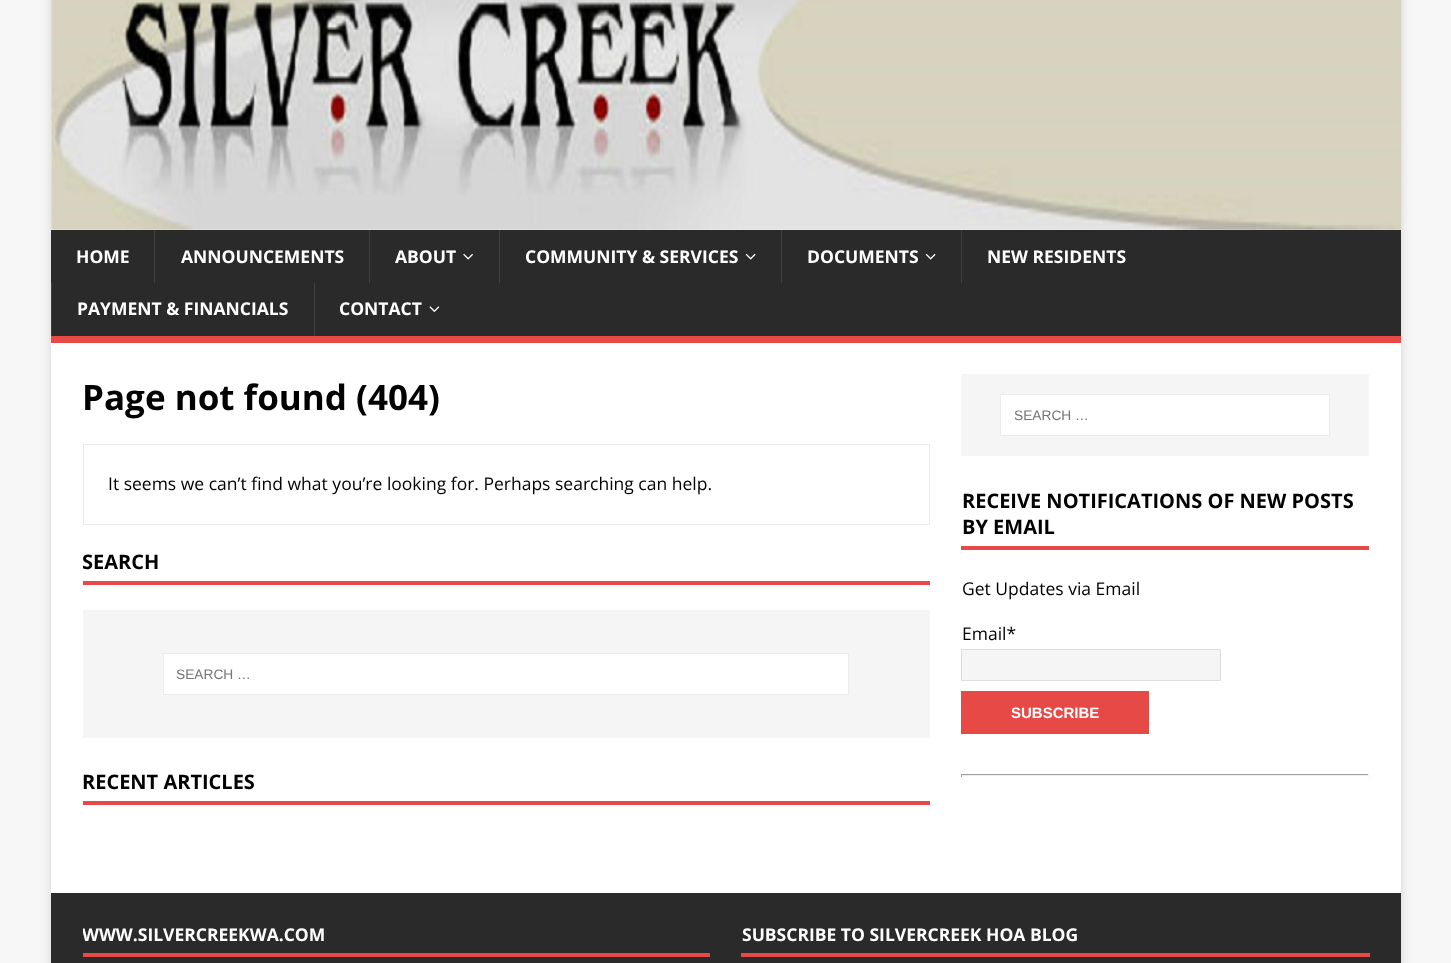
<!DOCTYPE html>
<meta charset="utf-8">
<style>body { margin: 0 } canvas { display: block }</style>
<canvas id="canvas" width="1451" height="963"></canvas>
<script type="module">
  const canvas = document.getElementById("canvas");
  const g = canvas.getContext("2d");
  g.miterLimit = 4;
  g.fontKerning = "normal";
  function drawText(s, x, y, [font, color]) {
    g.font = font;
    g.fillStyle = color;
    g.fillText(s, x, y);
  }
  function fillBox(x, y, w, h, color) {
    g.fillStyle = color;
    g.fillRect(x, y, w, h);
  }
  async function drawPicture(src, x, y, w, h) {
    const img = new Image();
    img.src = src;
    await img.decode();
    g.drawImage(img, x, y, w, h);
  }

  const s1 = ["bold 17.5px Open Sans", "#FFFFFF"];
  const s2 = ["bold 35px Open Sans", "#000000"];
  const s3 = ["17.5px Open Sans", "#000000"];
  const s4 = ["bold 20px Open Sans", "#000000"];
  const s5 = ["13.75px Liberation Sans", "#757575"];
  const s6 = ["bold 15px Liberation Sans", "#FFFFFF"];

  fillBox(0, 0, 1451, 963, "#F7F7F7");
  g.fillStyle = "rgba(50, 50, 50, 0.17)";
  g.filter = "blur(6px)";
  g.beginPath();
  g.rect(51, -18, 1350, 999);
  g.fill();
  g.filter = "none";
  fillBox(51, 0, 1350, 230, "#FFFFFF");
  await drawPicture("pic1.png", 51, 0, 1351, 230);
  fillBox(51, 230, 1350, 106, "#2A2A2A");
  fillBox(51, 336, 1350, 7, "#E64946");
  drawText("HOME", 76, 263, s1);
  fillBox(154, 230, 1, 53, "#3F3F3F");
  drawText("ANNOUNCEMENTS", 181, 263, s1);
  fillBox(369, 230, 1, 53, "#3F3F3F");
  drawText("ABOUT", 395, 263, s1);
  await drawPicture("pic2.png", 463, 253, 10, 7);
  fillBox(499, 230, 1, 53, "#3F3F3F");
  drawText("COMMUNITY & SERVICES", 525, 263, s1);
  await drawPicture("pic3.png", 745, 253, 11, 7);
  fillBox(781, 230, 1, 53, "#3F3F3F");
  drawText("DOCUMENTS", 807, 263, s1);
  await drawPicture("pic3.png", 925, 253, 11, 7);
  fillBox(961, 230, 1, 53, "#3F3F3F");
  drawText("NEW RESIDENTS", 987, 263, s1);
  fillBox(51, 283, 1, 53, "#3F3F3F");
  drawText("PAYMENT & FINANCIALS", 77, 315, s1);
  fillBox(314, 283, 1, 53, "#3F3F3F");
  drawText("CONTACT", 339, 315, s1);
  await drawPicture("pic4.png", 429, 306, 11, 6);
  fillBox(51, 343, 1350, 550, "#FFFFFF");
  drawText("Page not found (404)", 82, 410, s2);
  g.strokeStyle = "#EBEBEB";
  g.strokeRect(83.5, 444.5, 846, 80);
  drawText("It seems we can’t find what you’re looking for. Perhaps searching can help.", 108, 490, s3);
  fillBox(83, 581, 847, 4, "#E64946");
  g.save();
  g.beginPath();
  g.rect(83, 444, 847, 294);
  g.clip();
  drawText("SEARCH", 82, 569, s4);
  g.restore();
  fillBox(83, 610, 847, 128, "#F5F5F5");
  g.fillStyle = "#FFFFFF";
  g.beginPath();
  g.rect(163.5, 653.5, 685, 41);
  g.fill();
  g.stroke();
  drawText("SEARCH …", 176, 679, s5);
  fillBox(83, 801, 847, 4, "#E64946");
  drawText("RECENT ARTICLES", 82, 789, s4);
  fillBox(961, 374, 408, 82, "#F5F5F5");
  g.fillStyle = "#FFFFFF";
  g.beginPath();
  g.rect(1000.5, 394.5, 329, 41);
  g.fill();
  g.stroke();
  drawText("SEARCH …", 1014, 420, s5);
  fillBox(961, 546, 408, 4, "#E64946");
  drawText("RECEIVE NOTIFICATIONS OF NEW POSTS", 962, 508, s4);
  drawText("BY EMAIL", 962, 534, s4);
  drawText("Get Updates via Email", 962, 595, s3);
  drawText("Email*", 962, 640, s3);
  g.fillStyle = "#F5F5F5";
  g.beginPath();
  g.rect(961.5, 649.5, 259, 31);
  g.fill();
  g.strokeStyle = "#DDDDDD";
  g.stroke();
  fillBox(961, 691, 188, 43, "#E64946");
  drawText("SUBSCRIBE", 1011, 718, s6);
  fillBox(961, 774, 408, 1, "#9F9F9F");
  fillBox(1368, 774, 1, 3, "#EEEEEE");
  fillBox(961, 775, 408, 1, "#EEEEEE");
  fillBox(961, 774, 1, 3, "#9F9F9F");
  fillBox(51, 893, 1350, 70, "#2A2A2A");
  fillBox(83, 953, 627, 4, "#E64946");
  g.save();
  g.beginPath();
  g.rect(83, 924, 627, 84);
  g.clip();
  drawText("WWW.SILVERCREEKWA.COM", 82, 941, s1);
  g.restore();
  fillBox(741, 953, 629, 4, "#E64946");
  drawText("SUBSCRIBE TO SILVERCREEK HOA BLOG", 742, 941, s1);
</script>
